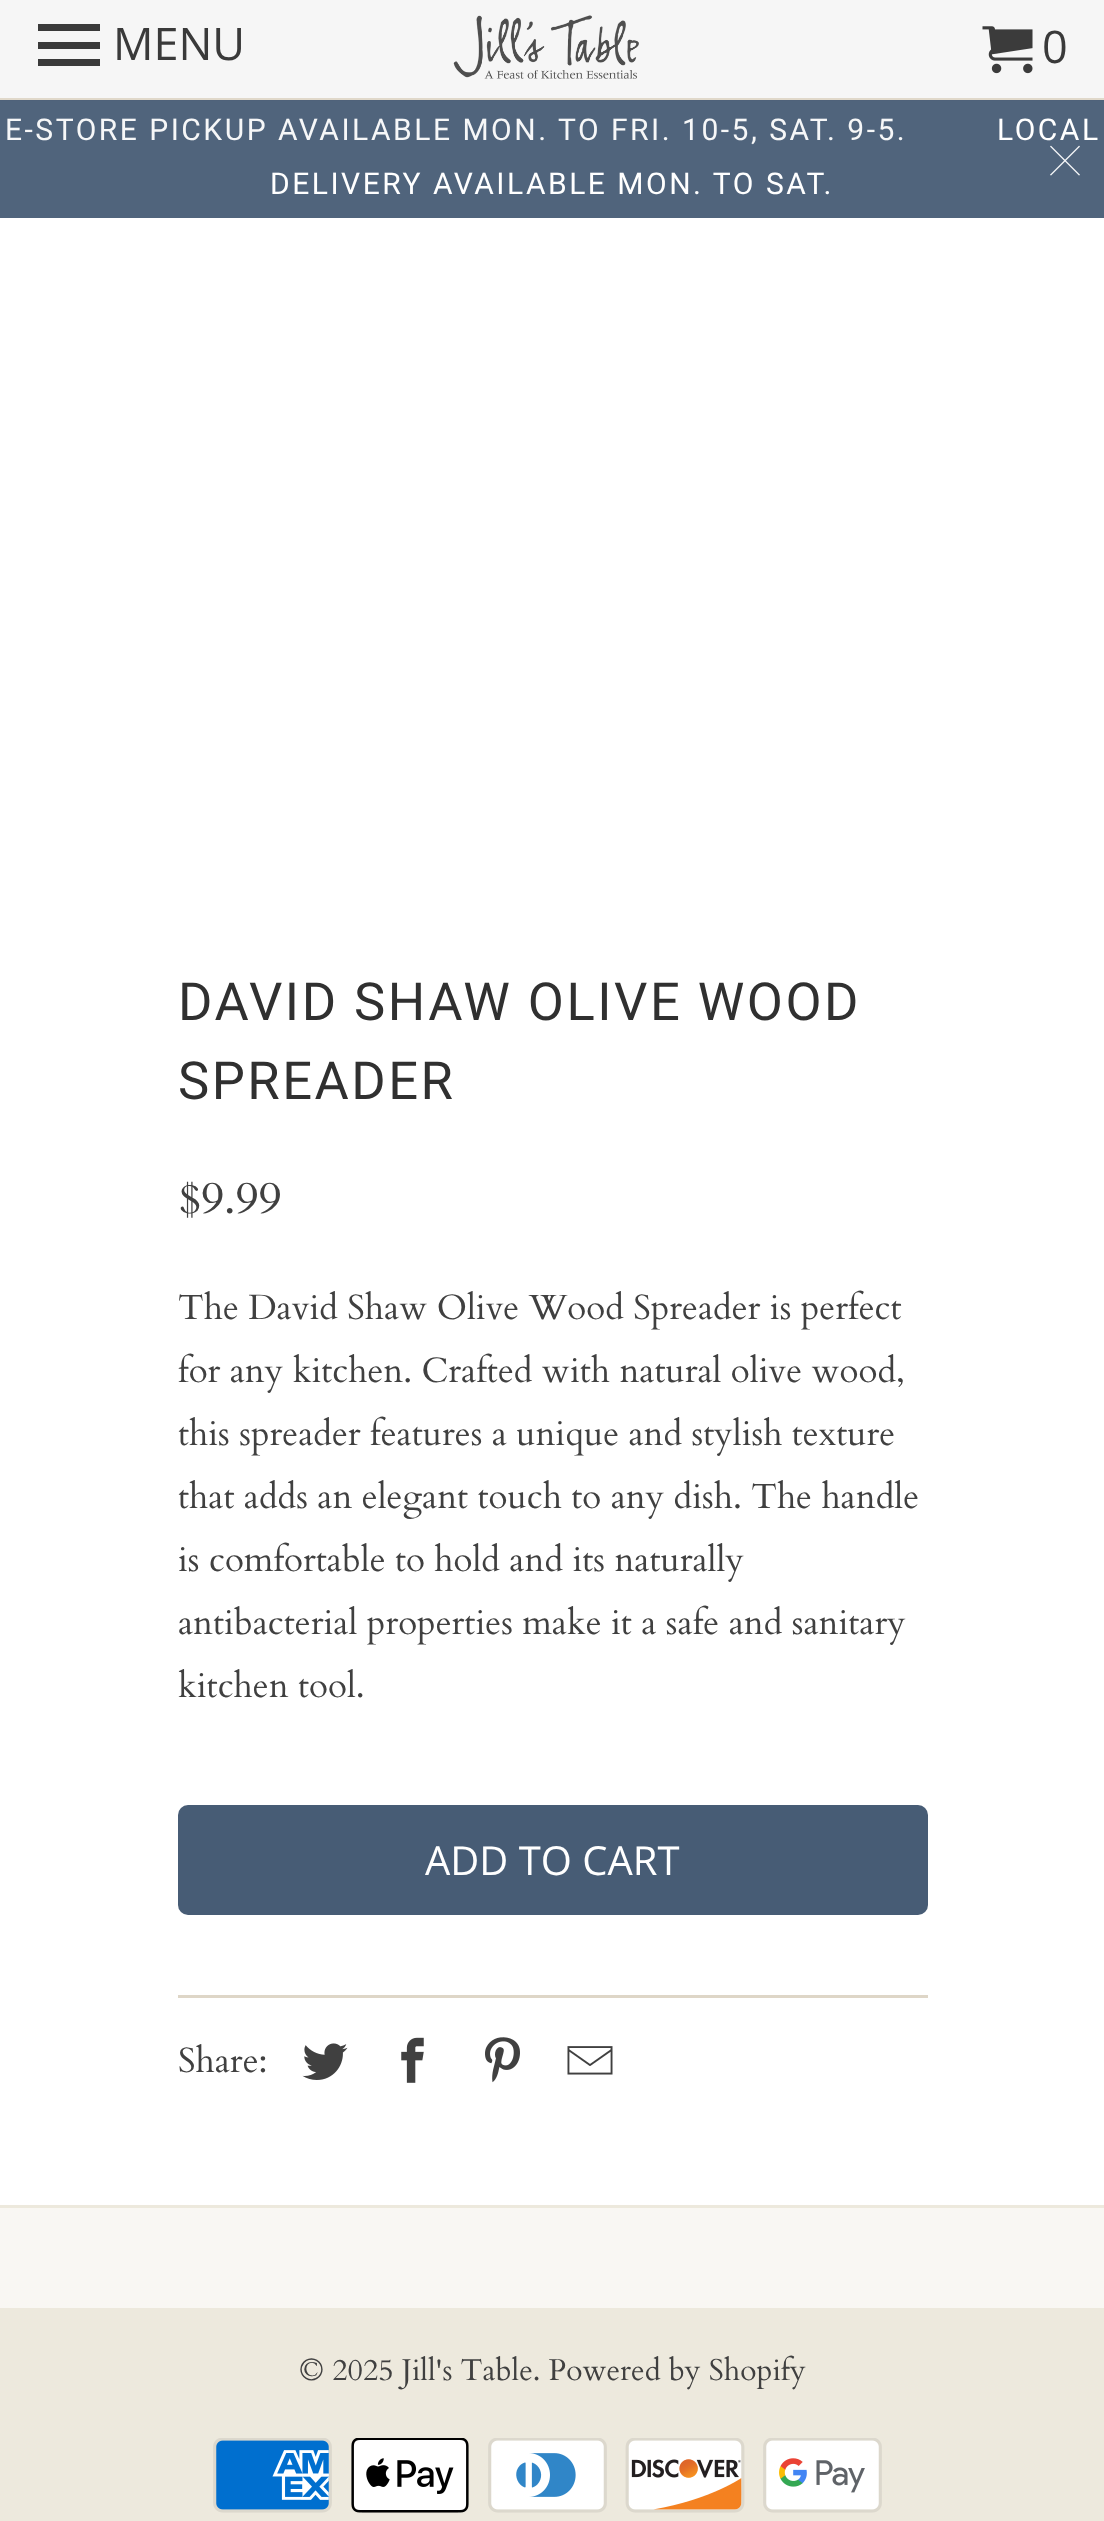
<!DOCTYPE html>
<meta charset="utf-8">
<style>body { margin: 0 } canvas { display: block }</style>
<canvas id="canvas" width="1104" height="2521"></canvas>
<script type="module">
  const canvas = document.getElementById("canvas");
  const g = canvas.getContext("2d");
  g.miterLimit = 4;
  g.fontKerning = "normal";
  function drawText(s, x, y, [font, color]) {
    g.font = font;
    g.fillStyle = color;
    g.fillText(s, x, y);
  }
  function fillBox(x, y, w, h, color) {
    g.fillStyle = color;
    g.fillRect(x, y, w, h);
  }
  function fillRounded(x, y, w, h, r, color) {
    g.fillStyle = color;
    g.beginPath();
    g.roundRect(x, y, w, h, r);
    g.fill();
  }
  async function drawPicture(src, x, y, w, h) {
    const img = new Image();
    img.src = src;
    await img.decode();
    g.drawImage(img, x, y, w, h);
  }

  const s1 = ["45px Open Sans", "#3A3A3A"];
  const s2 = ["30px Roboto", "#F6F7F8"];
  const s3 = ["30px Roboto", "#FFFFFF"];
  const s4 = ["52.5px Roboto", "#303030"];
  const s5 = ["45px Cardo", "#404040"];
  const s6 = ["35px Cardo", "#404040"];
  const s7 = ["40px Open Sans", "#FFFFFF"];
  const s8 = ["30px Cardo", "#404040"];

  fillBox(0, 0, 1104, 2521, "#FFFFFF");
  fillBox(0, 0, 1104, 100, "rgba(245, 245, 245, 0.95)");
  fillBox(0, 98, 1104, 3, "rgba(222, 214, 199, 0.95)");
  g.fillStyle = "#3A3A3A";
  g.beginPath();
  g.moveTo(38, 66);
  g.lineTo(100, 66);
  g.lineTo(100, 59);
  g.lineTo(38, 59);
  g.closePath();
  g.moveTo(38, 49);
  g.lineTo(100, 49);
  g.lineTo(100, 42);
  g.lineTo(38, 42);
  g.closePath();
  g.moveTo(38, 24);
  g.lineTo(38, 31);
  g.lineTo(100, 31);
  g.lineTo(100, 24);
  g.closePath();
  g.fill();
  drawText("MENU", 113, 60, s1);
  await drawPicture("pic1.png", 453, 15, 186, 64);
  await drawPicture("pic2.png", 982, 26, 51, 48);
  drawText("0", 1042, 63, s1);
  fillBox(0, 100, 1104, 118, "rgba(71, 92, 117, 0.95)");
  g.letterSpacing = "2.5px";
  drawText("E-STORE PICKUP AVAILABLE MON. TO FRI. 10-5, SAT. 9-5.", 5, 140, s2);
  drawText("LOCAL", 997, 140, s3);
  drawText("DELIVERY AVAILABLE MON. TO SAT.", 270, 194, s3);
  await drawPicture("pic3.png", 1050, 145, 30, 31);
  drawText("DAVID SHAW OLIVE WOOD", 178, 1020, s4);
  drawText("SPREADER", 178, 1099, s4);
  g.letterSpacing = "0px";
  drawText("$9.99", 178, 1213, s5);
  drawText("The David Shaw Olive Wood Spreader is perfect", 178, 1319, s6);
  drawText("for any kitchen. Crafted with natural olive wood,", 178, 1382, s6);
  drawText("this spreader features a unique and stylish texture", 178, 1445, s6);
  drawText("that adds an elegant touch to any dish. The handle", 178, 1508, s6);
  drawText("is comfortable to hold and its naturally", 178, 1571, s6);
  drawText("antibacterial properties make it a safe and sanitary", 178, 1634, s6);
  drawText("kitchen tool.", 178, 1697, s6);
  fillRounded(178, 1805, 750, 110, 10, "#475C75");
  drawText("ADD TO CART", 425, 1875, s7);
  fillBox(178, 1995, 750, 3, "#DED6C7");
  drawText("Share:", 178, 2072, s6);
  await drawPicture("pic4.png", 302, 2043, 46, 37);
  await drawPicture("pic5.png", 401, 2037, 23, 46);
  await drawPicture("pic6.png", 485, 2037, 35, 46);
  await drawPicture("pic7.png", 567, 2046, 46, 29);
  fillBox(0, 2208, 1104, 100, "#F9F7F3");
  fillBox(0, 2205, 1104, 3, "#EDE9DD");
  fillBox(0, 2308, 1104, 213, "#EDE9DD");
  drawText("© 2025 Jill's Table. Powered by Shopify", 299, 2380, s8);
  await drawPicture("pic8.png", 213, 2438, 119, 75);
  await drawPicture("pic9.png", 351, 2438, 118, 75);
  await drawPicture("pic10.png", 488, 2438, 119, 75);
  await drawPicture("pic11.png", 625, 2438, 120, 75);
  await drawPicture("pic12.png", 763, 2438, 119, 75);
</script>
